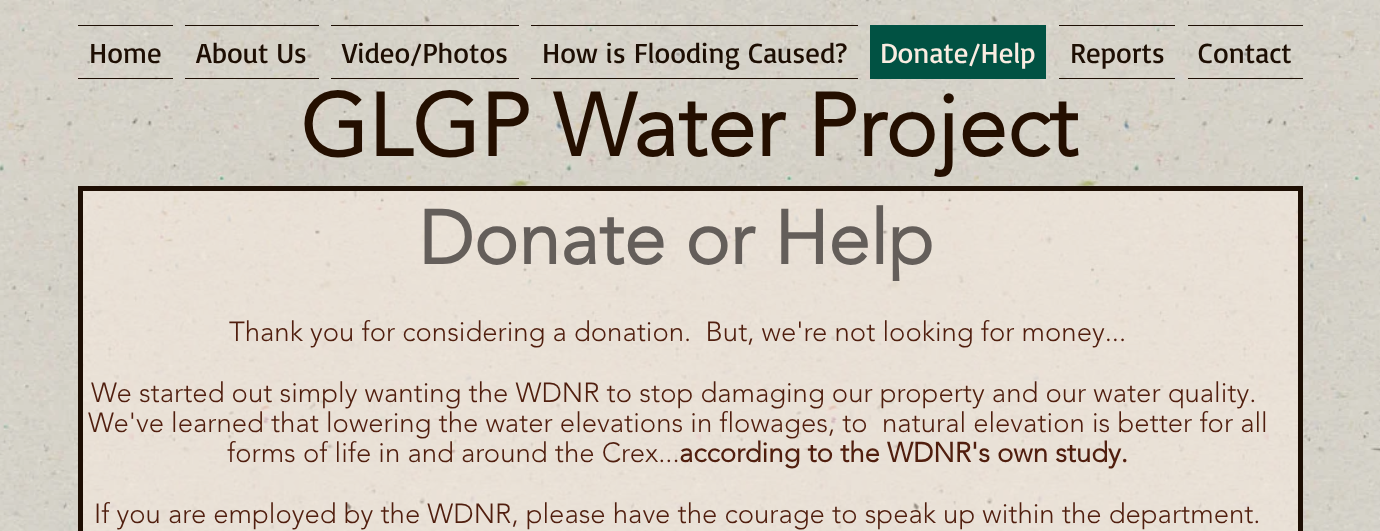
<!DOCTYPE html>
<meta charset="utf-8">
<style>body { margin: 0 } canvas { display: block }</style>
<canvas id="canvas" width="1380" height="531"></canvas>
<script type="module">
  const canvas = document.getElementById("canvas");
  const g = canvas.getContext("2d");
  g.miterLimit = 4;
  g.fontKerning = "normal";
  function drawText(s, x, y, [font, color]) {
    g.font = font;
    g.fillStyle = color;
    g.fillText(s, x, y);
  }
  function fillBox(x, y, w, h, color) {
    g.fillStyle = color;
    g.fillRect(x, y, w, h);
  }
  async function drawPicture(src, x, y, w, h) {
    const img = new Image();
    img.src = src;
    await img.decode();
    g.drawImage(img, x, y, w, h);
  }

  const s1 = ["28.75px Basic", "#1D0E03"];
  const s2 = ["28.75px Basic", "#FAECE1"];
  const s3 = ["bold 87.5px 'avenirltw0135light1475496'", "#240F00"];
  const s4 = ["bold 75px 'avenirltw0135light1475496'", "#645E5A"];
  const s5 = ["300 27.5px 'avenirltw0135light1475496'", "#501E0E"];
  const s6 = ["bold 27.5px 'avenirltw0135light1475496'", "#501E0E"];

  fillBox(0, 0, 1380, 531, "#FFFFFF");
  await drawPicture("pic1.png", 0, 0, 1380, 531);
  fillBox(78, 25, 95, 1, "#1D0E03");
  fillBox(78, 78, 95, 1, "#1D0E03");
  drawText("Home", 89, 63, s1);
  fillBox(185, 25, 134, 1, "#1D0E03");
  fillBox(185, 78, 134, 1, "#1D0E03");
  drawText("About Us", 196, 63, s1);
  fillBox(331, 25, 188, 1, "#1D0E03");
  fillBox(331, 78, 188, 1, "#1D0E03");
  drawText("Video/Photos", 342, 63, s1);
  fillBox(531, 25, 327, 1, "#1D0E03");
  fillBox(531, 78, 327, 1, "#1D0E03");
  drawText("How is Flooding Caused?", 542, 63, s1);
  fillBox(870, 25, 176, 54, "#015243");
  drawText("Donate/Help", 880, 63, s2);
  fillBox(1059, 25, 116, 1, "#1D0E03");
  fillBox(1059, 78, 116, 1, "#1D0E03");
  drawText("Reports", 1070, 63, s1);
  fillBox(1188, 25, 115, 1, "#1D0E03");
  fillBox(1188, 78, 115, 1, "#1D0E03");
  drawText("Contact", 1198, 63, s1);
  drawText("GLGP Water Project", 300, 156, s3);
  g.fillStyle = "rgba(250, 236, 225, 0.55)";
  g.beginPath();
  g.rect(80.5, 188.5, 1220, 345);
  g.fill();
  g.strokeStyle = "#1D0E03";
  g.lineWidth = 5;
  g.stroke();
  drawText("Donate or Help", 418, 264, s4);
  drawText("Thank you for considering a donation.  But, we're not looking for money...", 229, 341, s5);
  drawText("We started out simply wanting the WDNR to stop damaging our property and our water quality.", 91, 402, s5);
  drawText("We've learned that lowering the water elevations in flowages, to  natural elevation is better for all", 88, 432, s5);
  drawText("forms of life in and around the Crex...", 227, 462, s5);
  drawText("according to the WDNR's own study.", 679, 462, s6);
  drawText("If you are employed by the WDNR, please have the courage to speak up within the department.", 94, 523, s5);
</script>
